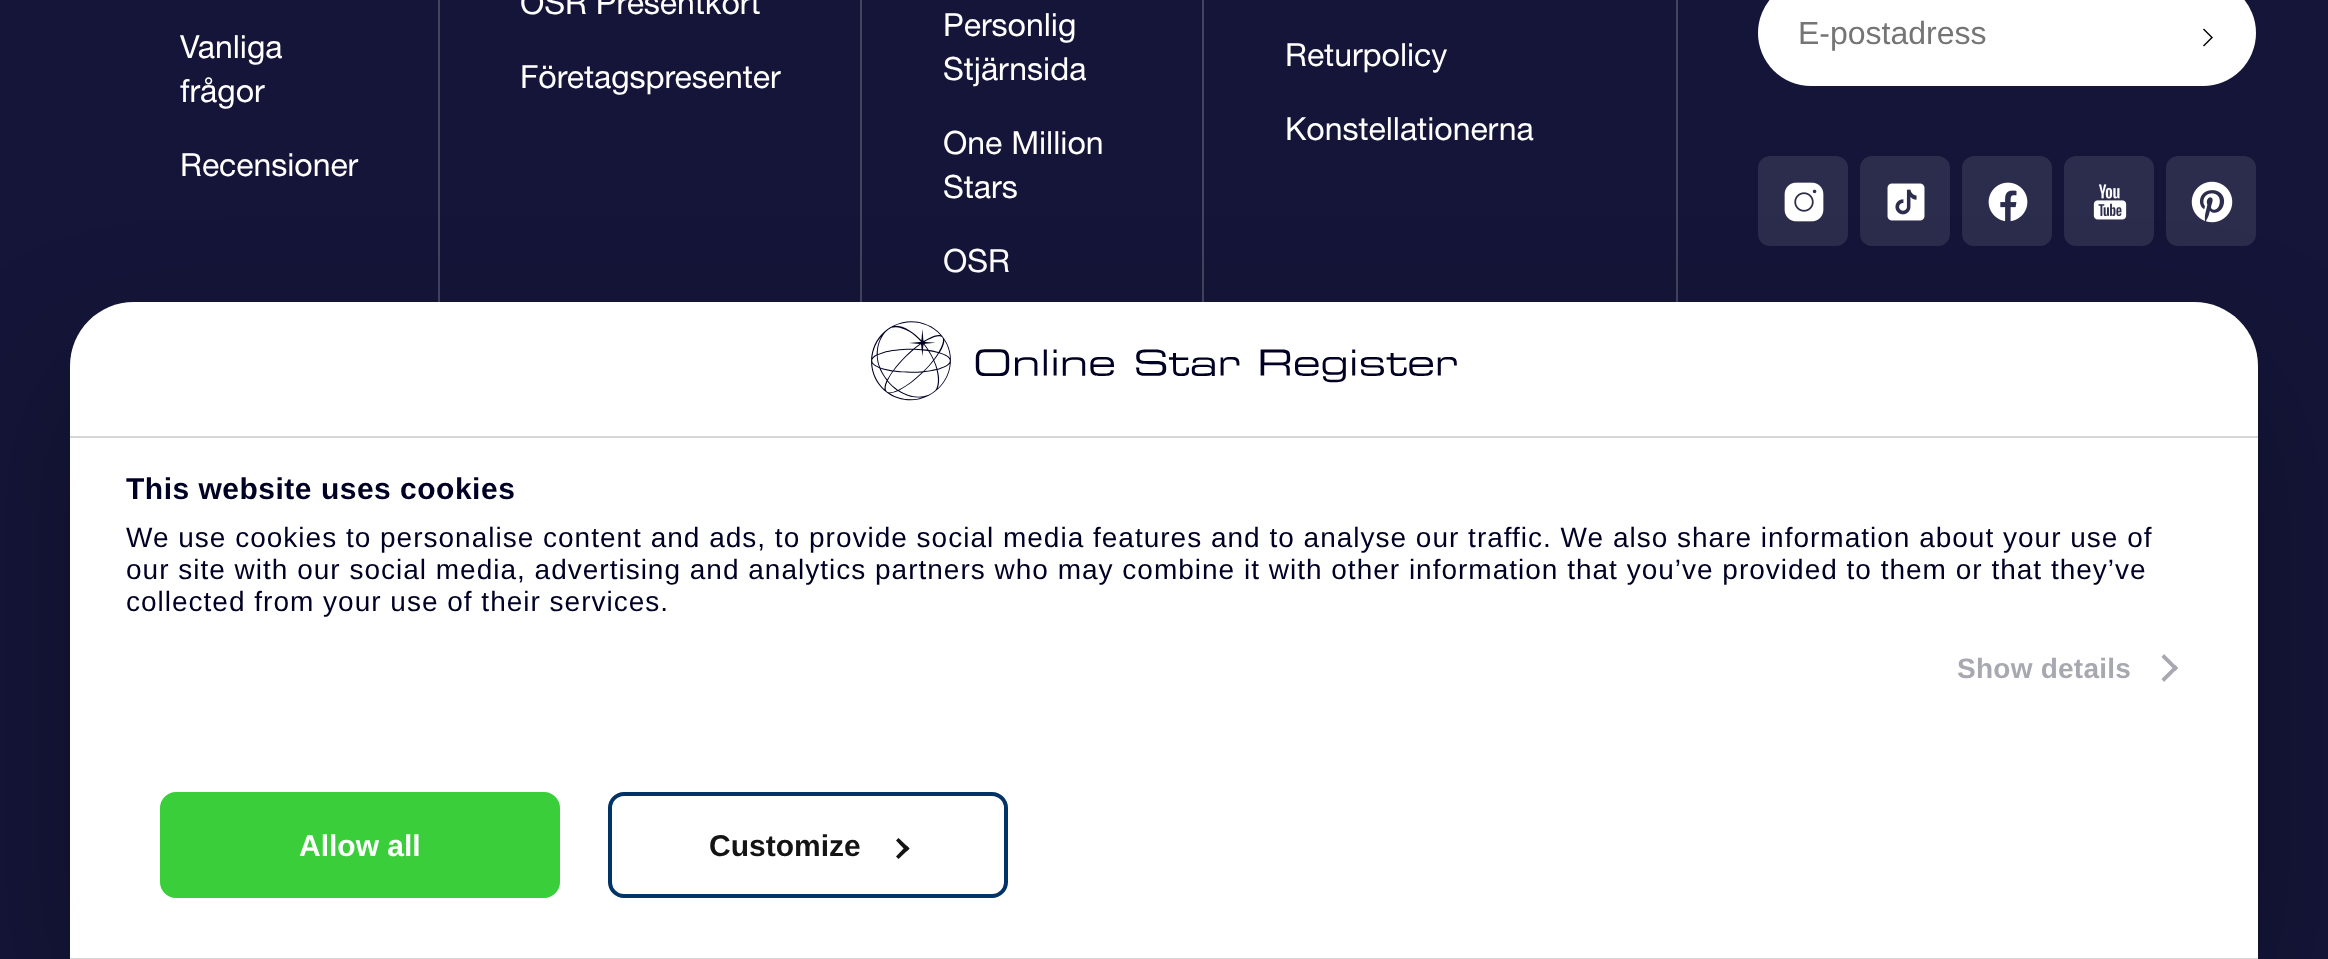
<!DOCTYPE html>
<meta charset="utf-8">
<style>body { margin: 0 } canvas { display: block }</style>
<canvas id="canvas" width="2328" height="959"></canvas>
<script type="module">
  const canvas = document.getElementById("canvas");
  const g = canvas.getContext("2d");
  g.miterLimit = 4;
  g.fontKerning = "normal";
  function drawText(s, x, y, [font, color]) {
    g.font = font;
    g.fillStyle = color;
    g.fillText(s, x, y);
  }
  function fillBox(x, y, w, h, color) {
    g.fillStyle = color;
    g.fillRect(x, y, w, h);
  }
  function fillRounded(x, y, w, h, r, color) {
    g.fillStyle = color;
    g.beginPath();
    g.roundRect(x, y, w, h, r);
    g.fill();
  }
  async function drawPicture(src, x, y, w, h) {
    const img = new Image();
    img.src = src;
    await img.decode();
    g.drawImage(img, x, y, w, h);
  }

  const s1 = ["32px Helvetica Neue", "#FFFFFF"];
  const s2 = ["32px Liberation Sans", "#757575"];
  const s3 = ["bold 30px Liberation Sans", "#000024"];
  const s4 = ["28px Liberation Sans", "#000024"];
  const s5 = ["bold 28px Liberation Sans", "#A8A8B1"];
  const s6 = ["bold 30px Liberation Sans", "#FFFFFF"];
  const s7 = ["bold 30px Liberation Sans", "#141414"];

  fillBox(0, 0, 2328, 959, "#151539");
  fillBox(438, 0, 2, 302, "#444461");
  drawText("Vanliga", 180, 58, s1);
  drawText("frågor", 180, 102, s1);
  drawText("Recensioner", 180, 176, s1);
  fillBox(860, 0, 2, 302, "#444461");
  drawText("OSR Presentkort", 520, 14, s1);
  drawText("Företagspresenter", 520, 88, s1);
  fillBox(1202, 0, 2, 302, "#444461");
  drawText("Personlig", 943, 36, s1);
  drawText("Stjärnsida", 943, 80, s1);
  drawText("One Million", 943, 154, s1);
  drawText("Stars", 943, 198, s1);
  drawText("OSR", 943, 272, s1);
  fillBox(1676, 0, 2, 302, "#444461");
  drawText("Returpolicy", 1285, 66, s1);
  drawText("Konstellationerna", 1285, 140, s1);
  fillRounded(1758, -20, 498, 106, 53, "#FFFFFF");
  drawText("E-postadress", 1798, 44, s2);
  g.fillStyle = "#000000";
  g.beginPath();
  g.moveTo(2204, 46.5);
  g.lineTo(2203, 45.5);
  g.lineTo(2211, 37.5);
  g.lineTo(2203, 29.5);
  g.lineTo(2204, 28.5);
  g.lineTo(2213, 37.5);
  g.closePath();
  g.fill();
  fillRounded(1758, 156, 90, 90, 12, "#2C2C4D");
  await drawPicture("pic1.png", 1784, 182, 40, 40);
  fillRounded(1860, 156, 90, 90, 12, "#2C2C4D");
  await drawPicture("pic2.png", 1887, 183, 38, 38);
  fillRounded(1962, 156, 90, 90, 12, "#2C2C4D");
  await drawPicture("pic3.png", 1988, 182, 40, 40);
  fillRounded(2064, 156, 90, 90, 12, "#2C2C4D");
  await drawPicture("pic4.png", 2093, 184, 34, 36);
  fillRounded(2166, 156, 90, 90, 12, "#2C2C4D");
  await drawPicture("pic5.png", 2191, 181, 42, 42);
  g.fillStyle = "rgba(0, 0, 0, 0.3)";
  g.filter = "blur(68px)";
  g.beginPath();
  g.roundRect(70, 366, 2188, 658, 64);
  g.fill();
  g.filter = "none";
  g.fillStyle = "#FFFFFF";
  g.beginPath();
  g.moveTo(134, 302);
  g.lineTo(2194, 302);
  g.bezierCurveTo(2229.5, 302, 2258, 330.5, 2258, 366);
  g.lineTo(2258, 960);
  g.lineTo(70, 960);
  g.lineTo(70, 366);
  g.bezierCurveTo(70, 330.5, 98.5, 302, 134, 302);
  g.closePath();
  g.fill();
  fillBox(70, 436, 2188, 2, "#D6D6D6");
  await drawPicture("pic6.png", 871, 321, 586, 80);
  g.letterSpacing = "0.5px";
  drawText("This website uses cookies", 126, 499, s3);
  g.letterSpacing = "1px";
  drawText("We use cookies to personalise content and ads, to provide social media features and to analyse our traffic. We also share information about your use of", 126, 547, s4);
  drawText("our site with our social media, advertising and analytics partners who may combine it with other information that you’ve provided to them or that they’ve", 126, 579, s4);
  drawText("collected from your use of their services.", 126, 611, s4);
  g.letterSpacing = "0.25px";
  drawText("Show details", 1957, 678, s5);
  g.beginPath();
  g.moveTo(2164, 654);
  g.lineTo(2178, 668);
  g.lineTo(2175.5, 671);
  g.lineTo(2161.5, 657);
  g.closePath();
  g.fill();
  g.beginPath();
  g.moveTo(2175.5, 665);
  g.lineTo(2178, 668);
  g.lineTo(2164, 682);
  g.lineTo(2161.5, 679);
  g.closePath();
  g.fill();
  fillBox(70, 958, 2188, 1, "#D6D6D6");
  g.fillStyle = "#3ACF3A";
  g.beginPath();
  g.roundRect(162, 794, 396, 102, 14);
  g.fill();
  g.strokeStyle = "#3ACF3A";
  g.lineWidth = 4;
  g.stroke();
  g.letterSpacing = "0px";
  drawText("Allow all", 299, 856, s6);
  g.beginPath();
  g.roundRect(610, 794, 396, 102, 14);
  g.strokeStyle = "#003366";
  g.stroke();
  drawText("Customize", 709, 856, s7);
  g.beginPath();
  g.moveTo(898.5, 838);
  g.lineTo(909.5, 848.5);
  g.lineTo(906.5, 851.5);
  g.lineTo(896, 840.5);
  g.closePath();
  g.fill();
  g.beginPath();
  g.moveTo(906.5, 845.5);
  g.lineTo(909.5, 848.5);
  g.lineTo(898.5, 859);
  g.lineTo(896, 856.5);
  g.closePath();
  g.fill();
</script>
